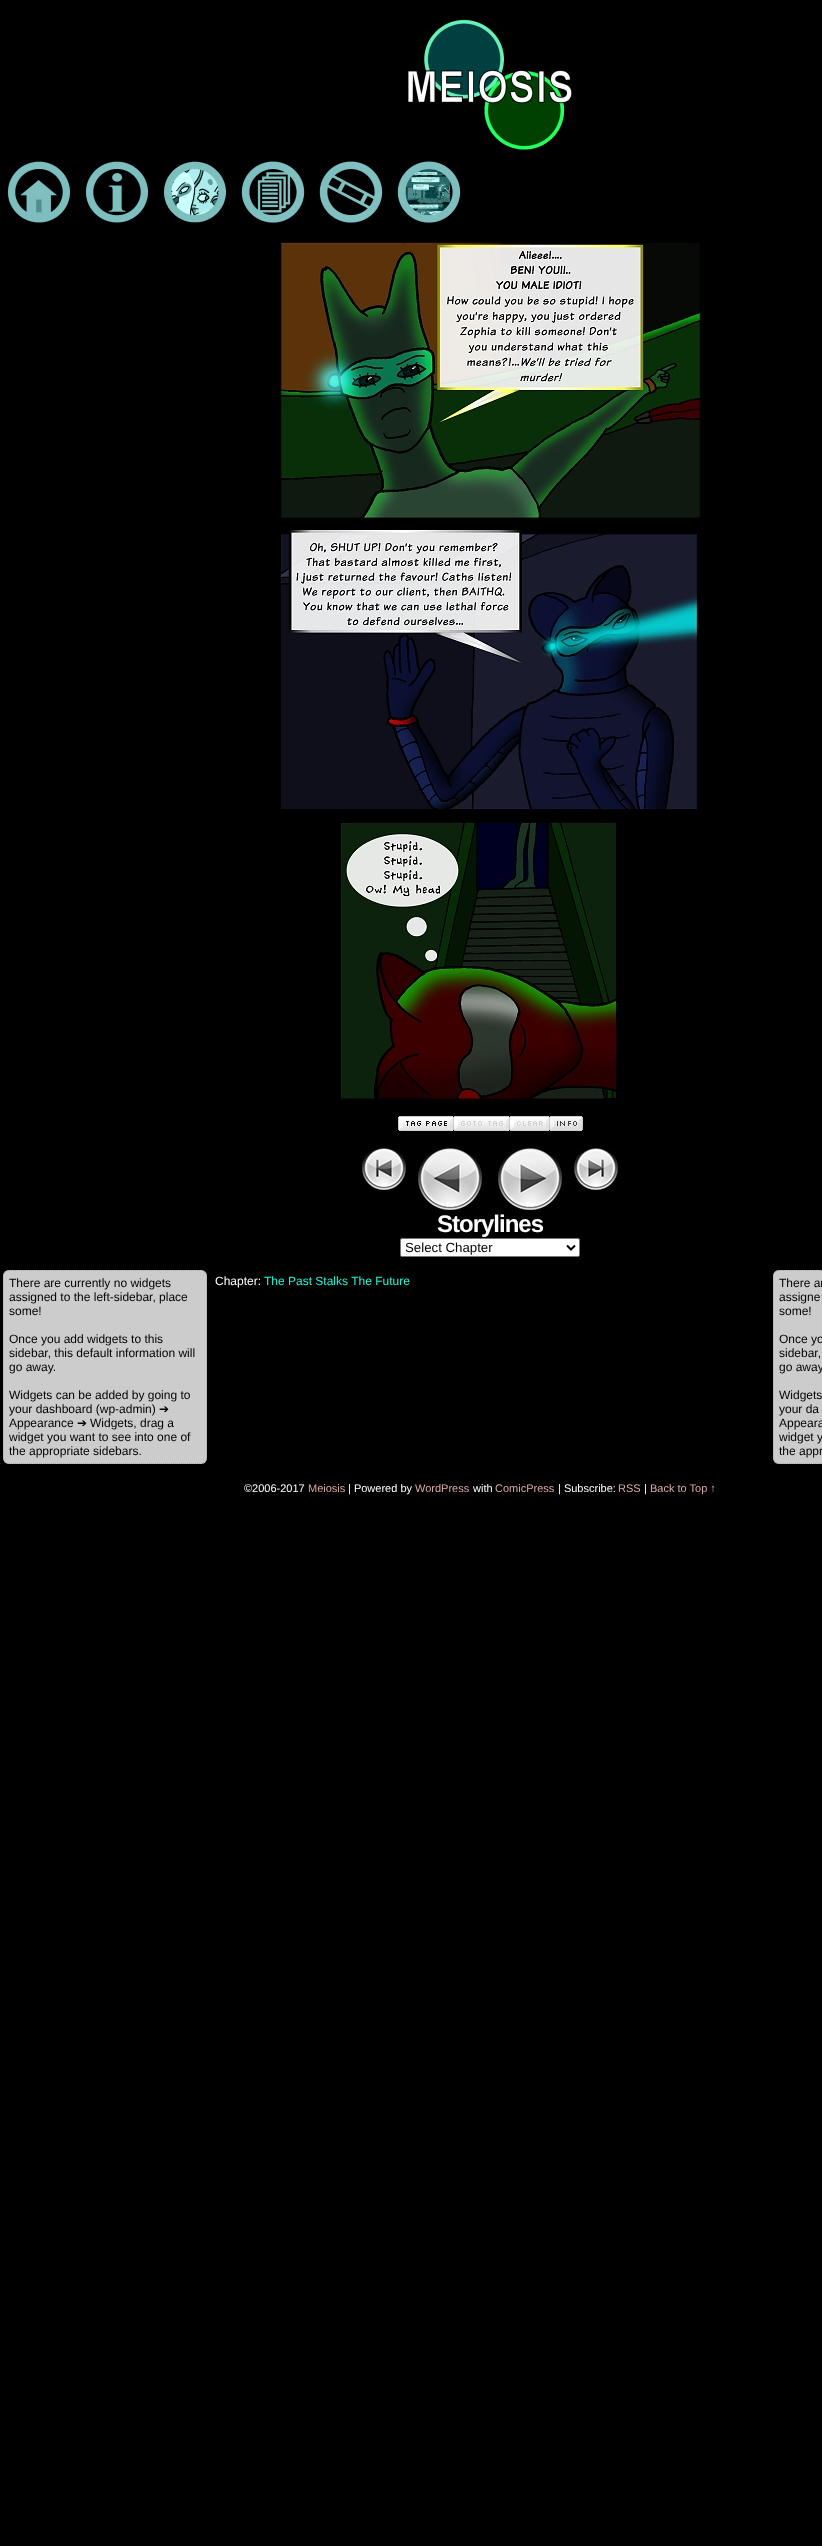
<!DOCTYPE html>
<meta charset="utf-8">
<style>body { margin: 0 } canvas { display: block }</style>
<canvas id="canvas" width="822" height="2546"></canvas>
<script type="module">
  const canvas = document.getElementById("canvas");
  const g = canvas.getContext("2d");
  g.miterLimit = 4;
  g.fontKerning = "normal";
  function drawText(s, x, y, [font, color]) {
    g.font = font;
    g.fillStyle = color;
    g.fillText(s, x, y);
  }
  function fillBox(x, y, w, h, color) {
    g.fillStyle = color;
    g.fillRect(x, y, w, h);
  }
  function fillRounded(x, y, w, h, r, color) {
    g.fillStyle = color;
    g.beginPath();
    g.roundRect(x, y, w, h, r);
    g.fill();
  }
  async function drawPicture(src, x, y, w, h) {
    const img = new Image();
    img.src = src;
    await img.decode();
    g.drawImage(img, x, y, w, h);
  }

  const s1 = ["bold 24px Liberation Sans", "#FFFFFF"];
  const s2 = ["13.25px Liberation Sans", "#000000"];
  const s3 = ["12px Liberation Sans", "#000000"];
  const s4 = ["12px DejaVu Sans", "#000000"];
  const s5 = ["12px Liberation Sans", "#FFFFFF"];
  const s6 = ["12px Liberation Sans", "#1DF7D6"];
  const s7 = ["11px Liberation Sans", "#FFFFFF"];
  const s8 = ["11px Liberation Sans", "#DDAAAA"];

  fillBox(0, 0, 822, 2546, "#000000");
  await drawPicture("pic1.png", 408, 19, 164, 131);
  await drawPicture("pic2.png", 7, 161, 64, 62);
  await drawPicture("pic3.png", 85, 161, 64, 62);
  await drawPicture("pic4.png", 164, 161, 62, 62);
  await drawPicture("pic5.png", 241, 161, 64, 62);
  await drawPicture("pic6.png", 319, 161, 64, 62);
  await drawPicture("pic7.png", 397, 161, 64, 62);
  await drawPicture("pic8.png", 279, 232, 422, 869);
  await drawPicture("pic9.png", 398, 1116, 56, 15);
  await drawPicture("pic10.png", 454, 1116, 56, 15);
  await drawPicture("pic11.png", 510, 1116, 40, 15);
  await drawPicture("pic12.png", 550, 1116, 33, 15);
  await drawPicture("pic13.png", 362, 1148, 44, 42);
  await drawPicture("pic14.png", 418, 1148, 64, 62);
  await drawPicture("pic15.png", 498, 1148, 64, 62);
  await drawPicture("pic16.png", 574, 1148, 44, 42);
  g.letterSpacing = "-1px";
  drawText("Storylines", 437, 1232, s1);
  g.beginPath();
  g.roundRect(400.5, 1238.5, 179, 18, 1.5);
  g.fill();
  g.strokeStyle = "#767676";
  g.stroke();
  g.beginPath();
  g.moveTo(567, 1245.5);
  g.lineTo(571, 1249.5);
  g.lineTo(575, 1245.5);
  g.strokeStyle = "#000000";
  g.lineWidth = 2;
  g.stroke();
  g.letterSpacing = "0px";
  drawText("Select Chapter", 405, 1252, s2);
  fillRounded(3, 1270, 204, 194, 6, "#CCCCCC");
  g.beginPath();
  g.moveTo(9, 1270.5);
  g.lineTo(201, 1270.5);
  g.bezierCurveTo(204, 1270.5, 206.5, 1273, 206.5, 1276);
  g.lineTo(206.5, 1458);
  g.bezierCurveTo(206.5, 1461, 204, 1463.5, 201, 1463.5);
  g.lineTo(9, 1463.5);
  g.bezierCurveTo(6, 1463.5, 3.5, 1461, 3.5, 1458);
  g.lineTo(3.5, 1276);
  g.bezierCurveTo(3.5, 1273, 6, 1270.5, 9, 1270.5);
  g.closePath();
  g.strokeStyle = "#AAAAAA";
  g.lineWidth = 1;
  g.setLineDash([1, 1]);
  g.stroke();
  drawText("There are currently no widgets", 9, 1287, s3);
  drawText("assigned to the left-sidebar, place", 9, 1301, s3);
  drawText("some!", 9, 1315, s3);
  drawText("Once you add widgets to this", 9, 1343, s3);
  drawText("sidebar, this default information will", 9, 1357, s3);
  drawText("go away.", 9, 1371, s3);
  drawText("Widgets can be added by going to", 9, 1399, s3);
  drawText("your dashboard (wp-admin)", 9, 1413, s3);
  drawText("➔", 159, 1413, s4);
  drawText("Appearance", 9, 1427, s3);
  drawText("➔", 77, 1427, s4);
  drawText("Widgets, drag a", 90, 1427, s3);
  drawText("widget you want to see into one of", 9, 1441, s3);
  drawText("the appropriate sidebars.", 9, 1455, s3);
  drawText("Chapter:", 215, 1285, s5);
  drawText("The Past Stalks The Future", 264, 1285, s6);
  fillRounded(773, 1270, 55, 194, 6, "#CCCCCC");
  g.beginPath();
  g.moveTo(779, 1270.5);
  g.lineTo(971, 1270.5);
  g.bezierCurveTo(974, 1270.5, 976.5, 1273, 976.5, 1276);
  g.lineTo(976.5, 1458);
  g.bezierCurveTo(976.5, 1461, 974, 1463.5, 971, 1463.5);
  g.lineTo(779, 1463.5);
  g.bezierCurveTo(776, 1463.5, 773.5, 1461, 773.5, 1458);
  g.lineTo(773.5, 1276);
  g.bezierCurveTo(773.5, 1273, 776, 1270.5, 779, 1270.5);
  g.closePath();
  g.stroke();
  drawText("There ar", 779, 1287, s3);
  drawText("assigne", 779, 1301, s3);
  drawText("some!", 779, 1315, s3);
  drawText("Once yo", 779, 1343, s3);
  drawText("sidebar,", 779, 1357, s3);
  drawText("go away", 779, 1371, s3);
  drawText("Widgets", 779, 1399, s3);
  drawText("your da", 779, 1413, s3);
  drawText("Appeara", 779, 1427, s3);
  drawText("widget y", 779, 1441, s3);
  drawText("the appr", 779, 1455, s3);
  drawText("©2006-2017", 244, 1492, s7);
  drawText("Meiosis", 308, 1492, s8);
  drawText("| Powered by", 348, 1492, s7);
  drawText("WordPress", 415, 1492, s8);
  drawText("with", 473, 1492, s7);
  drawText("ComicPress", 495, 1492, s8);
  drawText("| Subscribe:", 558, 1492, s7);
  drawText("RSS", 618, 1492, s8);
  drawText("|", 644, 1492, s7);
  drawText("Back to Top ↑", 650, 1492, s8);
</script>
